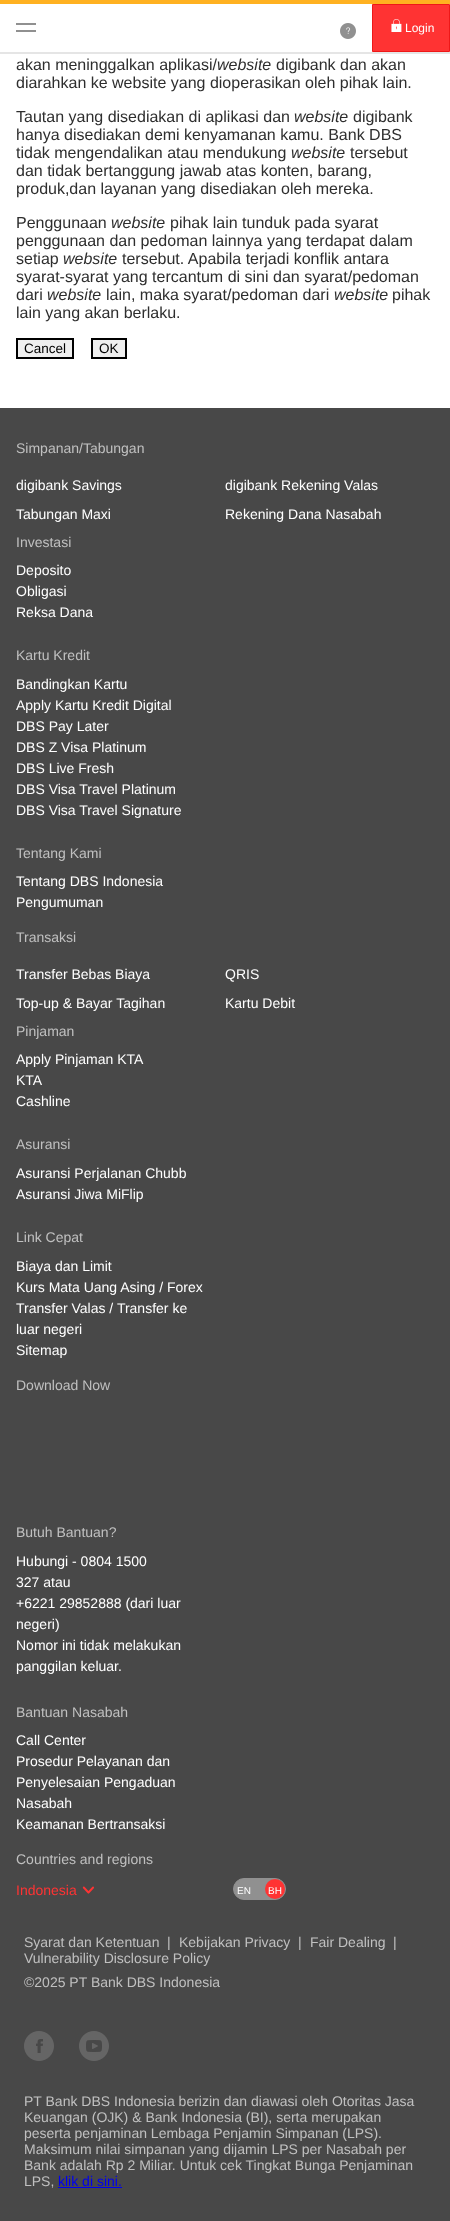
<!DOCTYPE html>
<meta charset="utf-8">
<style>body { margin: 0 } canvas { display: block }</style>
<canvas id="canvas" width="450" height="2221"></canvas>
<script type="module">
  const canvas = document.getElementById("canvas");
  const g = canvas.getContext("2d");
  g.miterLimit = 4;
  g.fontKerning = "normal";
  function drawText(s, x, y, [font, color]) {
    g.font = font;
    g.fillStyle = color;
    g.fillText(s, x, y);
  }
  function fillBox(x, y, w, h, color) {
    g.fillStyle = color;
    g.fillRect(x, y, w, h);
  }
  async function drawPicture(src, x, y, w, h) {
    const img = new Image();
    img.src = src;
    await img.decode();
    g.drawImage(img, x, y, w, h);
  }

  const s1 = ["12px Liberation Sans", "#FFFFFF"];
  const s2 = ["16px Liberation Sans", "#2E2E2E"];
  const s3 = ["italic 16px Liberation Sans", "#2E2E2E"];
  const s4 = ["13.5px Liberation Sans", "#000000"];
  const s5 = ["14px Liberation Sans", "#C0C0C0"];
  const s6 = ["14px Liberation Sans", "#FFFFFF"];
  const s7 = ["14px Liberation Sans", "#FF3333"];
  const s8 = ["10px Liberation Sans", "#FFFFFF"];
  const s9 = ["14px Liberation Sans", "#0000EE"];

  fillBox(0, 0, 450, 2221, "#FFFFFF");
  g.save();
  g.beginPath();
  g.rect(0, 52, 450, 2);
  g.clip();
  g.fillStyle = "rgba(0, 0, 0, 0.1)";
  g.filter = "blur(0.5px)";
  g.beginPath();
  g.rect(0, 2, 450, 52);
  g.fill();
  g.filter = "none";
  g.restore();
  fillBox(0, 0, 450, 4, "#FFB121");
  fillBox(16, 23, 20, 2, "#909090");
  fillBox(16, 30, 20, 2, "#909090");
  await drawPicture("pic1.png", 340, 23, 16, 16);
  g.fillStyle = "#FF3333";
  g.beginPath();
  g.rect(372.5, 4.5, 77, 47);
  g.fill();
  g.strokeStyle = "#EE1818";
  g.stroke();
  await drawPicture("pic2.png", 391, 19, 11, 13);
  drawText("Login", 405, 32, s1);
  drawText("akan meninggalkan aplikasi/", 16, 70, s2);
  drawText("website", 217, 70, s3);
  drawText("digibank dan akan", 276, 70, s2);
  drawText("diarahkan ke website yang dioperasikan oleh pihak lain.", 16, 88, s2);
  drawText("Tautan yang disediakan di aplikasi dan", 16, 122, s2);
  drawText("website", 294, 122, s3);
  drawText("digibank", 353, 122, s2);
  drawText("hanya disediakan demi kenyamanan kamu. Bank DBS", 16, 140, s2);
  drawText("tidak mengendalikan atau mendukung", 16, 158, s2);
  drawText("website", 291, 158, s3);
  drawText("tersebut", 350, 158, s2);
  drawText("dan tidak bertanggung jawab atas konten, barang,", 16, 176, s2);
  drawText("produk,dan layanan yang disediakan oleh mereka.", 16, 194, s2);
  drawText("Penggunaan", 16, 228, s2);
  drawText("website", 111, 228, s3);
  drawText("pihak lain tunduk pada syarat", 170, 228, s2);
  drawText("penggunaan dan pedoman lainnya yang terdapat dalam", 16, 246, s2);
  drawText("setiap", 16, 264, s2);
  drawText("website", 63, 264, s3);
  drawText("tersebut. Apabila terjadi konflik antara", 122, 264, s2);
  drawText("syarat-syarat yang tercantum di sini dan syarat/pedoman", 16, 282, s2);
  drawText("dari", 16, 300, s2);
  drawText("website", 47, 300, s3);
  drawText("lain, maka syarat/pedoman dari", 106, 300, s2);
  drawText("website", 334, 300, s3);
  drawText("pihak", 392, 300, s2);
  drawText("lain yang akan berlaku.", 16, 318, s2);
  g.fillStyle = "#EFEFEF";
  g.beginPath();
  g.rect(17, 339, 56, 19);
  g.fill();
  g.strokeStyle = "#000000";
  g.lineWidth = 2;
  g.stroke();
  drawText("Cancel", 24, 353, s4);
  g.fillStyle = "#EFEFEF";
  g.beginPath();
  g.rect(92, 339, 34, 19);
  g.fill();
  g.stroke();
  drawText("OK", 99, 353, s4);
  fillBox(0, 408, 450, 1813, "#484848");
  drawText("Simpanan/Tabungan", 16, 453, s5);
  drawText("digibank Savings", 16, 490, s6);
  drawText("digibank Rekening Valas", 225, 490, s6);
  drawText("Tabungan Maxi", 16, 519, s6);
  drawText("Rekening Dana Nasabah", 225, 519, s6);
  drawText("Investasi", 16, 547, s5);
  drawText("Deposito", 16, 575, s6);
  drawText("Obligasi", 16, 596, s6);
  drawText("Reksa Dana", 16, 617, s6);
  drawText("Kartu Kredit", 16, 660, s5);
  drawText("Bandingkan Kartu", 16, 689, s6);
  drawText("Apply Kartu Kredit Digital", 16, 710, s6);
  drawText("DBS Pay Later", 16, 731, s6);
  drawText("DBS Z Visa Platinum", 16, 752, s6);
  drawText("DBS Live Fresh", 16, 773, s6);
  drawText("DBS Visa Travel Platinum", 16, 794, s6);
  drawText("DBS Visa Travel Signature", 16, 815, s6);
  drawText("Tentang Kami", 16, 858, s5);
  drawText("Tentang DBS Indonesia", 16, 886, s6);
  drawText("Pengumuman", 16, 907, s6);
  drawText("Transaksi", 16, 942, s5);
  drawText("Transfer Bebas Biaya", 16, 979, s6);
  drawText("QRIS", 225, 979, s6);
  drawText("Top-up & Bayar Tagihan", 16, 1008, s6);
  drawText("Kartu Debit", 225, 1008, s6);
  drawText("Pinjaman", 16, 1036, s5);
  drawText("Apply Pinjaman KTA", 16, 1064, s6);
  drawText("KTA", 16, 1085, s6);
  drawText("Cashline", 16, 1106, s6);
  drawText("Asuransi", 16, 1149, s5);
  drawText("Asuransi Perjalanan Chubb", 16, 1178, s6);
  drawText("Asuransi Jiwa MiFlip", 16, 1199, s6);
  drawText("Link Cepat", 16, 1242, s5);
  drawText("Biaya dan Limit", 16, 1271, s6);
  drawText("Kurs Mata Uang Asing / Forex", 16, 1292, s6);
  drawText("Transfer Valas / Transfer ke", 16, 1313, s6);
  drawText("luar negeri", 16, 1334, s6);
  drawText("Sitemap", 16, 1355, s6);
  drawText("Download Now", 16, 1390, s5);
  drawText("Butuh Bantuan?", 16, 1537, s5);
  drawText("Hubungi - 0804 1500", 16, 1566, s6);
  drawText("327 atau", 16, 1587, s6);
  drawText("+6221 29852888 (dari luar", 16, 1608, s6);
  drawText("negeri)", 16, 1629, s6);
  drawText("Nomor ini tidak melakukan", 16, 1650, s6);
  drawText("panggilan keluar.", 16, 1671, s6);
  drawText("Bantuan Nasabah", 16, 1717, s5);
  drawText("Call Center", 16, 1745, s6);
  drawText("Prosedur Pelayanan dan", 16, 1766, s6);
  drawText("Penyelesaian Pengaduan", 16, 1787, s6);
  drawText("Nasabah", 16, 1808, s6);
  drawText("Keamanan Bertransaksi", 16, 1829, s6);
  drawText("Countries and regions", 16, 1864, s5);
  drawText("Indonesia", 16, 1895, s7);
  await drawPicture("pic3.png", 82, 1886, 12, 8);
  g.fillStyle = "#909090";
  g.beginPath();
  g.roundRect(233.5, 1878.5, 52, 21, 10.5);
  g.fill();
  g.strokeStyle = "#909090";
  g.lineWidth = 1;
  g.stroke();
  drawText("EN", 237, 1894, s8);
  g.fillStyle = "#FF3333";
  g.beginPath();
  g.arc(275, 1889, 10, 0, Math.PI * 2);
  g.fill();
  drawText("BH", 268, 1894, s8);
  drawText("Syarat dan Ketentuan", 24, 1947, s5);
  drawText("|", 167, 1947, s5);
  drawText("Kebijakan Privacy", 179, 1947, s5);
  drawText("|", 298, 1947, s5);
  drawText("Fair Dealing", 310, 1947, s5);
  drawText("|", 393, 1947, s5);
  drawText("Vulnerability Disclosure Policy", 24, 1963, s5);
  drawText("©2025 PT Bank DBS Indonesia", 24, 1987, s5);
  await drawPicture("pic4.png", 24, 2031, 30, 30);
  await drawPicture("pic5.png", 79, 2031, 30, 30);
  drawText("PT Bank DBS Indonesia berizin dan diawasi oleh Otoritas Jasa", 24, 2106, s5);
  drawText("Keuangan (OJK) & Bank Indonesia (BI), serta merupakan", 24, 2122, s5);
  drawText("peserta penjaminan Lembaga Penjamin Simpanan (LPS).", 24, 2138, s5);
  drawText("Maksimum nilai simpanan yang dijamin LPS per Nasabah per", 24, 2154, s5);
  drawText("Bank adalah Rp 2 Miliar. Untuk cek Tingkat Bunga Penjaminan", 24, 2170, s5);
  drawText("LPS,", 24, 2186, s5);
  drawText("klik di sini.", 58, 2186, s9);
  fillBox(58, 2187, 64, 1, "#0000EE");
</script>
